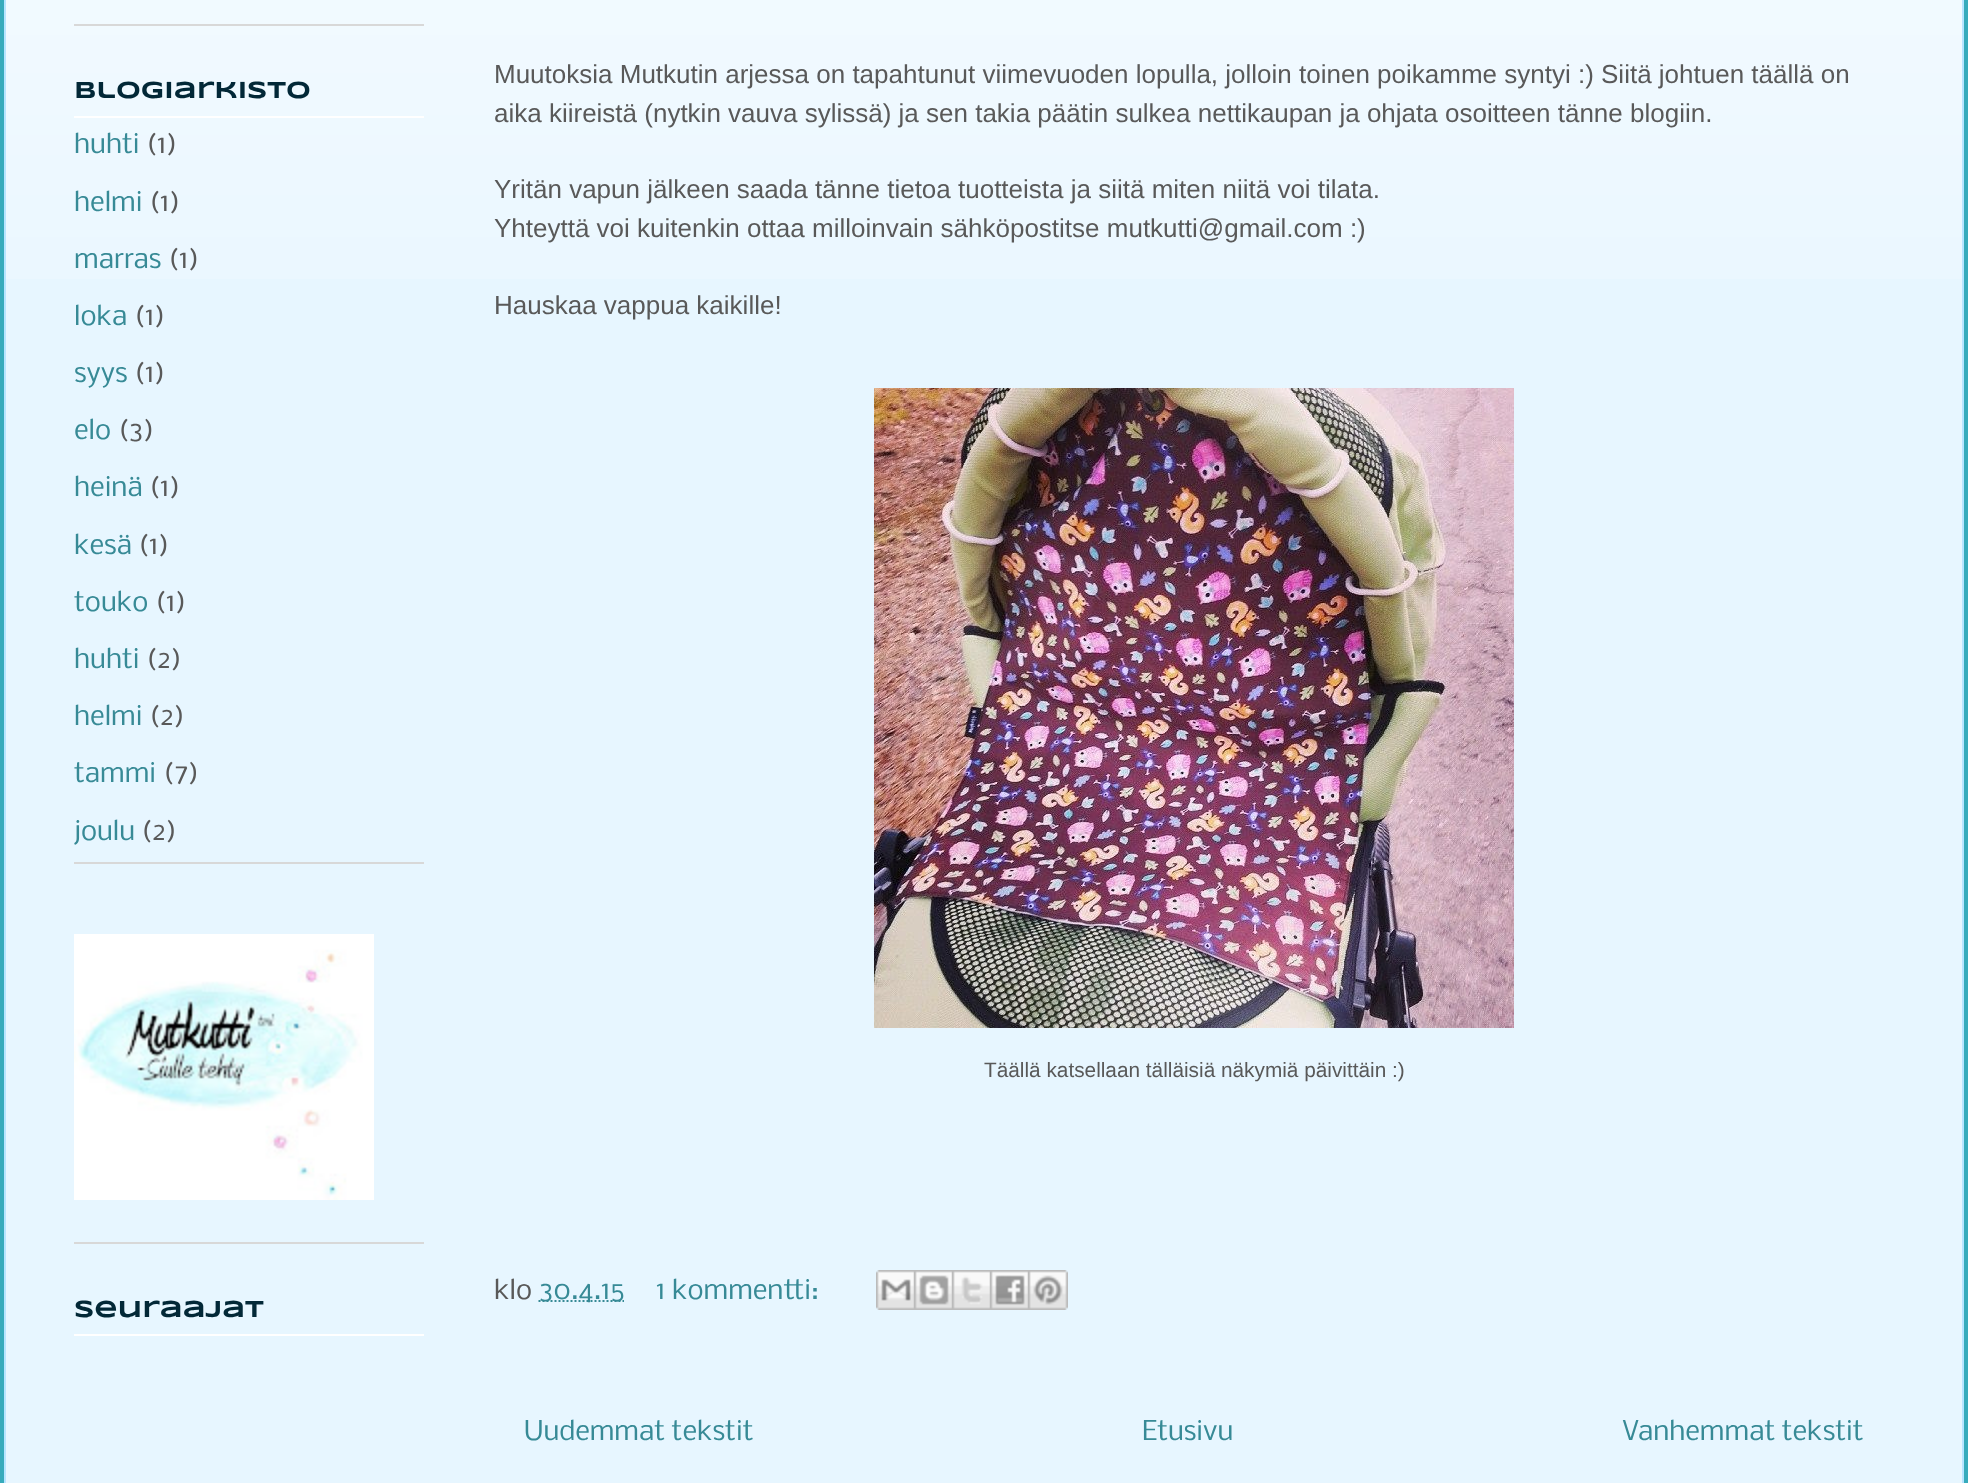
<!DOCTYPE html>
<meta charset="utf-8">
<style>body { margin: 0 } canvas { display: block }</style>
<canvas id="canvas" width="1968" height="1483"></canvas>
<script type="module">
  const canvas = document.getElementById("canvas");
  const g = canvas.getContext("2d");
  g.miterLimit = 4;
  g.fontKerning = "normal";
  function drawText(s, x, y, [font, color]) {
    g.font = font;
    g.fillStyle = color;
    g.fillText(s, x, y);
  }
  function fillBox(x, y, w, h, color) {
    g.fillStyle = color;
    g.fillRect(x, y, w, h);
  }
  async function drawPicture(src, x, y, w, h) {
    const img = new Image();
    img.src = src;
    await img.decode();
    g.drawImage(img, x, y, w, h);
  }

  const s1 = ["bold 24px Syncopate", "#022837"];
  const s2 = ["26px Nobile", "#378A96"];
  const s3 = ["26px Nobile", "#595959"];
  const s4 = ["26px Liberation Sans", "#595959"];
  const s5 = ["20.8px Liberation Sans", "#595959"];

  fillBox(0, 0, 1968, 1483, "#37ABBC");
  fillBox(6, 0, 1956, 1483, "#E7F6FF");
  await drawPicture("pic1.png", 6, 0, 1956, 279);
  fillBox(1962, 0, 2, 1483, "#B7E5FF");
  fillBox(4, 0, 2, 1483, "#B7E5FF");
  fillBox(74, 24, 350, 2, "#D8D8D8");
  fillBox(74, 862, 350, 2, "#D8D8D8");
  fillBox(74, 116, 350, 2, "#FFFFFF");
  drawText("Blogiarkisto", 74, 98, s1);
  drawText("huhti", 74, 153, s2);
  drawText("(1)", 146, 153, s3);
  drawText("helmi", 74, 211, s2);
  drawText("(1)", 149, 211, s3);
  drawText("marras", 74, 268, s2);
  drawText("(1)", 168, 268, s3);
  drawText("loka", 74, 325, s2);
  drawText("(1)", 134, 325, s3);
  drawText("syys", 74, 382, s2);
  drawText("(1)", 134, 382, s3);
  drawText("elo", 74, 439, s2);
  drawText("(3)", 118, 439, s3);
  drawText("heinä", 74, 496, s2);
  drawText("(1)", 149, 496, s3);
  drawText("kesä", 74, 554, s2);
  drawText("(1)", 138, 554, s3);
  drawText("touko", 74, 611, s2);
  drawText("(1)", 155, 611, s3);
  drawText("huhti", 74, 668, s2);
  drawText("(2)", 146, 668, s3);
  drawText("helmi", 74, 725, s2);
  drawText("(2)", 149, 725, s3);
  drawText("tammi", 74, 782, s2);
  drawText("(7)", 163, 782, s3);
  drawText("joulu", 74, 840, s2);
  drawText("(2)", 141, 840, s3);
  fillBox(74, 1242, 350, 2, "#D8D8D8");
  await drawPicture("pic2.png", 74, 934, 300, 266);
  fillBox(74, 1334, 350, 2, "#FFFFFF");
  drawText("Seuraajat", 74, 1317, s1);
  drawText("Muutoksia Mutkutin arjessa on tapahtunut viimevuoden lopulla, jolloin toinen poikamme syntyi :) Siitä johtuen täällä on", 494, 83, s4);
  drawText("aika kiireistä (nytkin vauva sylissä) ja sen takia päätin sulkea nettikaupan ja ohjata osoitteen tänne blogiin.", 494, 122, s4);
  drawText("Yritän vapun jälkeen saada tänne tietoa tuotteista ja siitä miten niitä voi tilata.", 494, 198, s4);
  drawText("Yhteyttä voi kuitenkin ottaa milloinvain sähköpostitse mutkutti@gmail.com :)", 494, 237, s4);
  drawText("Hauskaa vappua kaikille!", 494, 314, s4);
  await drawPicture("pic3.png", 874, 388, 640, 640);
  drawText("Täällä katsellaan tälläisiä näkymiä päivittäin :)", 984, 1077, s5);
  drawText("klo", 494, 1299, s3);
  g.beginPath();
  g.moveTo(538.5, 1301);
  g.lineTo(624, 1301);
  g.strokeStyle = "#378A96";
  g.lineWidth = 2;
  g.setLineDash([2, 2]);
  g.stroke();
  drawText("30.4.15", 539, 1299, s2);
  drawText("1 kommentti:", 656, 1299, s2);
  await drawPicture("pic4.png", 876, 1270, 38, 40);
  await drawPicture("pic5.png", 914, 1270, 38, 40);
  await drawPicture("pic6.png", 952, 1270, 38, 40);
  await drawPicture("pic7.png", 990, 1270, 38, 40);
  await drawPicture("pic8.png", 1028, 1270, 40, 40);
  drawText("Uudemmat tekstit", 524, 1440, s2);
  drawText("Etusivu", 1142, 1440, s2);
  drawText("Vanhemmat tekstit", 1622, 1440, s2);
</script>
